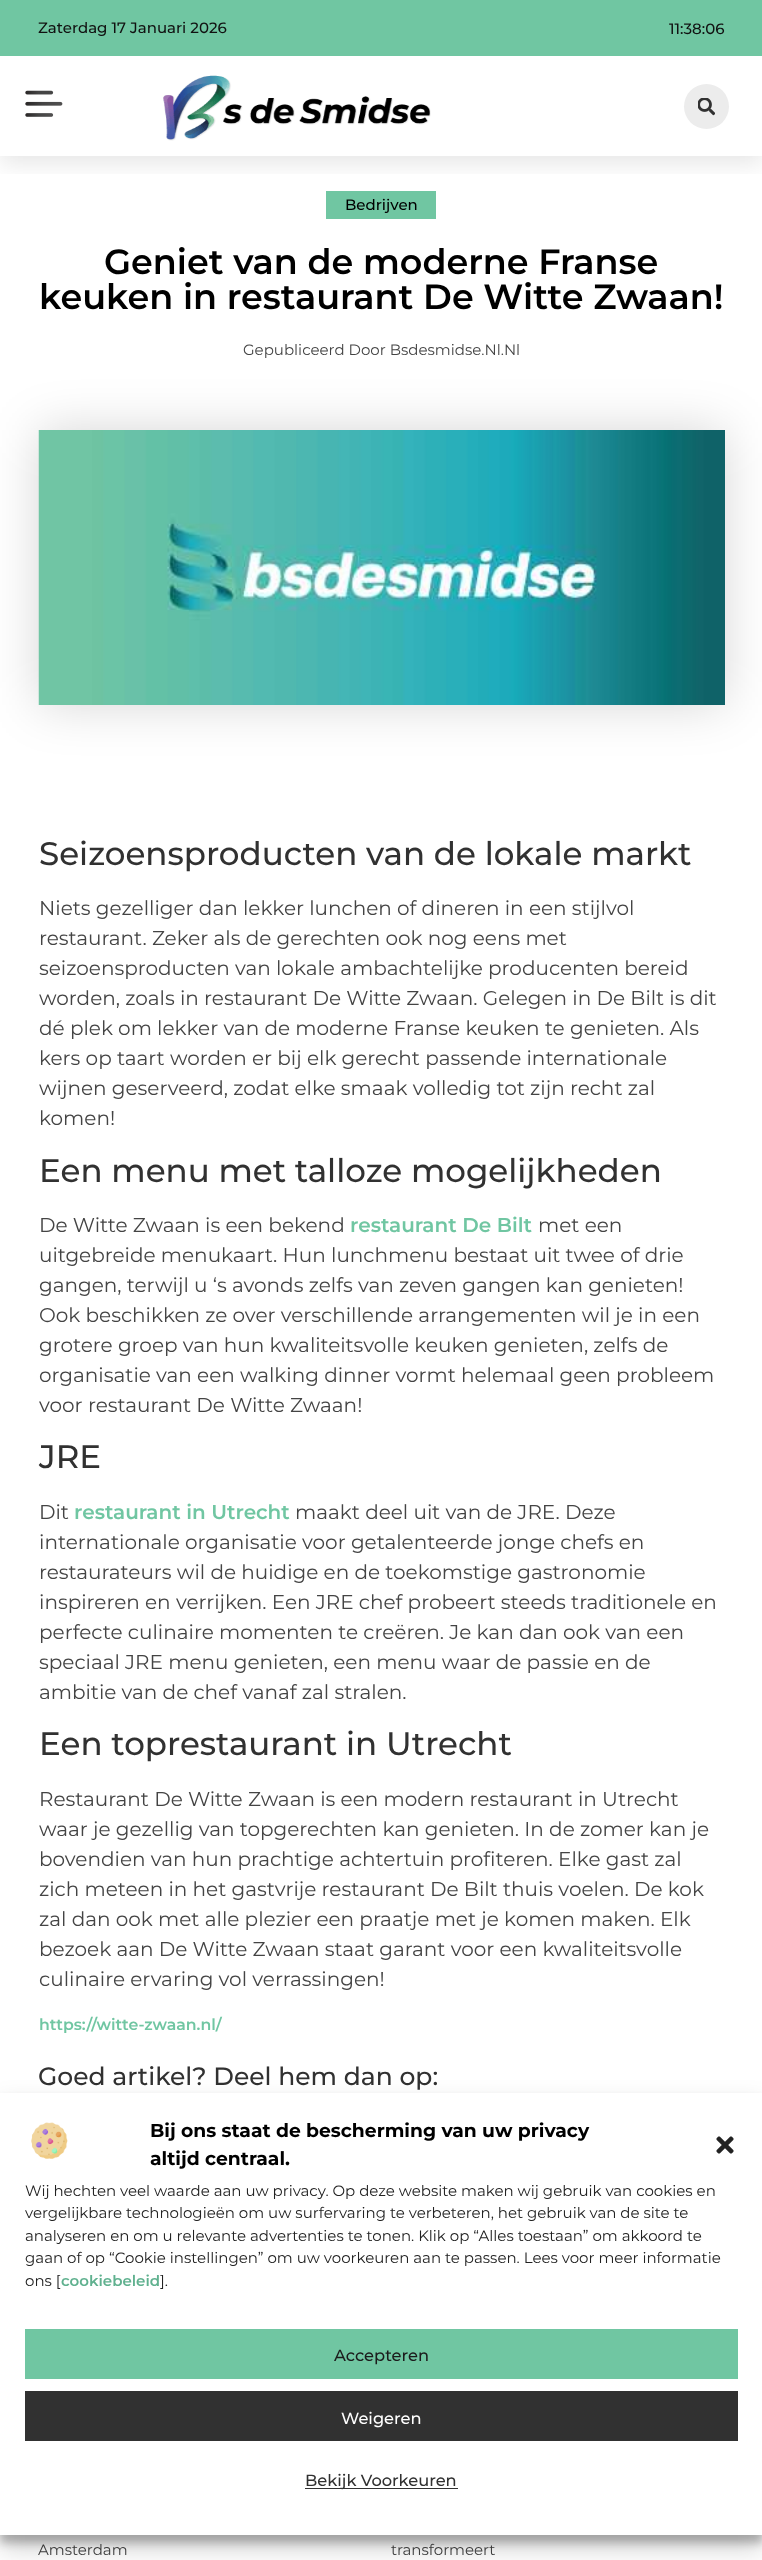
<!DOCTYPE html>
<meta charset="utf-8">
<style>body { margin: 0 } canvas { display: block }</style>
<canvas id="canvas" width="762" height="2560"></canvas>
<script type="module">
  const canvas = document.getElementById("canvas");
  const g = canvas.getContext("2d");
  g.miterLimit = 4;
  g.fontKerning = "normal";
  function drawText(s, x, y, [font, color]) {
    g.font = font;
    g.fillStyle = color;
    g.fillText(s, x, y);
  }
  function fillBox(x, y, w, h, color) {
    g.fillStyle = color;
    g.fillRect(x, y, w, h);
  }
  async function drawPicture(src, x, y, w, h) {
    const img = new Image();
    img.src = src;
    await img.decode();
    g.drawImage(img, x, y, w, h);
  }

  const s1 = ["500 15px Montserrat", "#111111"];
  const s2 = ["500 15px Montserrat", "#000000"];
  const s3 = ["600 35px Montserrat", "#000000"];
  const s4 = ["15px Montserrat", "#444444"];
  const s5 = ["500 32.5px Montserrat", "#313131"];
  const s6 = ["20px Montserrat", "#444444"];
  const s7 = ["600 20px Montserrat", "#70C6A2"];
  const s8 = ["600 15.75px Montserrat", "#70C6A2"];
  const s9 = ["500 25px Montserrat", "#313131"];
  const s10 = ["bold 18.75px Montserrat", "#000000"];
  const s11 = ["15px Montserrat", "#222222"];
  const s12 = ["600 15px Montserrat", "#60B18F"];
  const s13 = ["500 16.25px Montserrat", "#1C1C1C"];
  const s14 = ["500 16.25px Montserrat", "#FFFFFF"];
  const s15 = ["500 16.25px Montserrat", "#313131"];

  fillBox(0, 0, 762, 2560, "#FFFFFF");
  fillBox(326, 191, 110, 28, "#70C6A2");
  g.save();
  g.beginPath();
  g.rect(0, 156, 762, 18);
  g.clip();
  g.fillStyle = "rgba(0, 0, 0, 0.1)";
  g.filter = "blur(12.5px)";
  g.beginPath();
  g.rect(0, 6, 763, 157);
  g.fill();
  g.filter = "none";
  g.restore();
  fillBox(0, 0, 762, 56, "#70C6A2");
  drawText("Zaterdag 17 Januari 2026", 38, 33, s1);
  drawText("11:38:06", 669, 34, s1);
  await drawPicture("pic1.png", 25, 90, 38, 27);
  await drawPicture("pic2.png", 163, 75, 268, 66);
  g.fillStyle = "#ECECEC";
  g.beginPath();
  g.arc(706.5, 106.5, 22.5, 0, Math.PI * 2);
  g.fill();
  await drawPicture("pic3.png", 698, 98, 17, 18);
  drawText("Bedrijven", 345, 210, s2);
  drawText("Geniet van de moderne Franse", 104, 274, s3);
  drawText("keuken in restaurant De Witte Zwaan!", 39, 309, s3);
  drawText("Gepubliceerd Door Bsdesmidse.Nl.Nl", 243, 355, s4);
  g.fillStyle = "rgba(0, 0, 0, 0.16)";
  g.filter = "blur(25px)";
  g.beginPath();
  g.rect(39, 430, 686, 275);
  g.fill();
  g.filter = "none";
  await drawPicture("pic4.png", 38, 430, 687, 275);
  drawText("Seizoensproducten van de lokale markt", 39, 865, s5);
  drawText("Niets gezelliger dan lekker lunchen of dineren in een stijlvol", 39, 915, s6);
  drawText("restaurant. Zeker als de gerechten ook nog eens met", 39, 945, s6);
  drawText("seizoensproducten van lokale ambachtelijke producenten bereid", 39, 975, s6);
  drawText("worden, zoals in restaurant De Witte Zwaan. Gelegen in De Bilt is dit", 39, 1005, s6);
  drawText("dé plek om lekker van de moderne Franse keuken te genieten. Als", 39, 1035, s6);
  drawText("kers op taart worden er bij elk gerecht passende internationale", 39, 1065, s6);
  drawText("wijnen geserveerd, zodat elke smaak volledig tot zijn recht zal", 39, 1095, s6);
  drawText("komen!", 39, 1125, s6);
  drawText("Een menu met talloze mogelijkheden", 39, 1182, s5);
  drawText("De Witte Zwaan is een bekend", 39, 1232, s6);
  drawText("restaurant De Bilt", 350, 1232, s7);
  drawText("met een", 538, 1232, s6);
  drawText("uitgebreide menukaart. Hun lunchmenu bestaat uit twee of drie", 39, 1262, s6);
  drawText("gangen, terwijl u ‘s avonds zelfs van zeven gangen kan genieten!", 39, 1292, s6);
  drawText("Ook beschikken ze over verschillende arrangementen wil je in een", 39, 1322, s6);
  drawText("grotere groep van hun kwaliteitsvolle keuken genieten, zelfs de", 39, 1352, s6);
  drawText("organisatie van een walking dinner vormt helemaal geen probleem", 39, 1382, s6);
  drawText("voor restaurant De Witte Zwaan!", 39, 1412, s6);
  drawText("JRE", 39, 1468, s5);
  drawText("Dit", 39, 1519, s6);
  drawText("restaurant in Utrecht", 74, 1519, s7);
  drawText("maakt deel uit van de JRE. Deze", 295, 1519, s6);
  drawText("internationale organisatie voor getalenteerde jonge chefs en", 39, 1549, s6);
  drawText("restaurateurs wil de huidige en de toekomstige gastronomie", 39, 1579, s6);
  drawText("inspireren en verrijken. Een JRE chef probeert steeds traditionele en", 39, 1609, s6);
  drawText("perfecte culinaire momenten te creëren. Je kan dan ook van een", 39, 1639, s6);
  drawText("speciaal JRE menu genieten, een menu waar de passie en de", 39, 1669, s6);
  drawText("ambitie van de chef vanaf zal stralen.", 39, 1699, s6);
  drawText("Een toprestaurant in Utrecht", 39, 1755, s5);
  drawText("Restaurant De Witte Zwaan is een modern restaurant in Utrecht", 39, 1806, s6);
  drawText("waar je gezellig van topgerechten kan genieten. In de zomer kan je", 39, 1836, s6);
  drawText("bovendien van hun prachtige achtertuin profiteren. Elke gast zal", 39, 1866, s6);
  drawText("zich meteen in het gastvrije restaurant De Bilt thuis voelen. De kok", 39, 1896, s6);
  drawText("zal dan ook met alle plezier een praatje met je komen maken. Elk", 39, 1926, s6);
  drawText("bezoek aan De Witte Zwaan staat garant voor een kwaliteitsvolle", 39, 1956, s6);
  drawText("culinaire ervaring vol verrassingen!", 39, 1986, s6);
  drawText("https://witte-zwaan.nl/", 39, 2030, s8);
  drawText("Goed artikel? Deel hem dan op:", 38, 2085, s9);
  drawText("Amsterdam", 38, 2555, s4);
  drawText("transformeert", 391, 2555, s4);
  g.fillStyle = "rgba(0, 0, 0, 0.23)";
  g.filter = "blur(4px)";
  g.beginPath();
  g.rect(0, 2100, 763, 443);
  g.fill();
  g.filter = "none";
  g.fillStyle = "rgba(0, 0, 0, 0.19)";
  g.filter = "blur(12.5px)";
  g.beginPath();
  g.rect(0, 2105, 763, 443);
  g.fill();
  g.filter = "none";
  fillBox(0, 2093, 762, 442, "#FFFFFF");
  await drawPicture("pic5.png", 31, 2122, 37, 37);
  drawText("Bij ons staat de bescherming van uw privacy", 150, 2137, s10);
  drawText("altijd centraal.", 150, 2165, s10);
  await drawPicture("pic6.png", 716, 2136, 18, 18);
  drawText("Wij hechten veel waarde aan uw privacy. Op deze website maken wij gebruik van cookies en", 25, 2196, s11);
  drawText("vergelijkbare technologieën om uw surfervaring te verbeteren, het gebruik van de site te", 25, 2218, s11);
  drawText("analyseren en om u relevante advertenties te tonen. Klik op “Alles toestaan” om akkoord te", 25, 2241, s11);
  drawText("gaan of op “Cookie instellingen” om uw voorkeuren aan te passen. Lees voor meer informatie", 25, 2263, s11);
  drawText("ons [", 25, 2286, s11);
  drawText("cookiebeleid", 61, 2286, s12);
  drawText("].", 160, 2286, s11);
  fillBox(25, 2329, 713, 50, "#70C6A2");
  drawText("Accepteren", 334, 2361, s13);
  fillBox(25, 2391, 713, 50, "#313131");
  drawText("Weigeren", 341, 2424, s14);
  fillBox(305, 2488, 153, 1, "#313131");
  drawText("Bekijk Voorkeuren", 305, 2486, s15);
</script>
